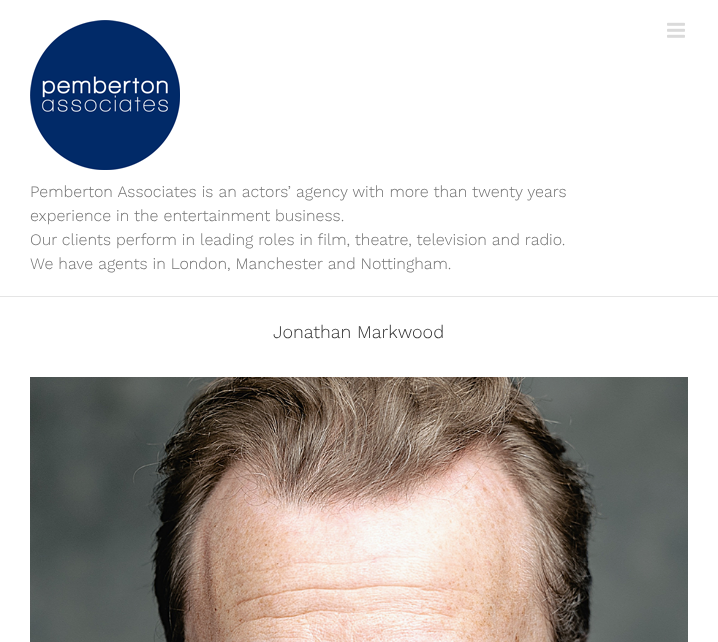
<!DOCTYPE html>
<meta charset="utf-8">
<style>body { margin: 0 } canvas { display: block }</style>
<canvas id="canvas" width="718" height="642"></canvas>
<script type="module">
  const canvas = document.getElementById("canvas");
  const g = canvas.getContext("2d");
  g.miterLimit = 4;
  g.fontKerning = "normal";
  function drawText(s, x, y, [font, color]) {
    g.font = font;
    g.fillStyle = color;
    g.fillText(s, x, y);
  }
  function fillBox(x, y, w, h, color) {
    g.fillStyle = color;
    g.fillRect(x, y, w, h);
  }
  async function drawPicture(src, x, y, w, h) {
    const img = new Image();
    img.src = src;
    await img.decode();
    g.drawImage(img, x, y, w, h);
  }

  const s1 = ["300 16px Work Sans", "#747474"];
  const s2 = ["300 18px Work Sans", "#333333"];

  fillBox(0, 0, 718, 642, "#FFFFFF");
  fillBox(0, 296, 718, 1, "#E5E5E5");
  await drawPicture("pic1.png", 667, 22, 18, 16);
  await drawPicture("pic2.png", 30, 20, 150, 150);
  drawText("Pemberton Associates is an actors’ agency with more than twenty years", 30, 197, s1);
  drawText("experience in the entertainment business.", 30, 221, s1);
  drawText("Our clients perform in leading roles in film, theatre, television and radio.", 30, 245, s1);
  drawText("We have agents in London, Manchester and Nottingham.", 30, 269, s1);
  drawText("Jonathan Markwood", 273, 338, s2);
  await drawPicture("pic3.png", 30, 377, 658, 265);
</script>
